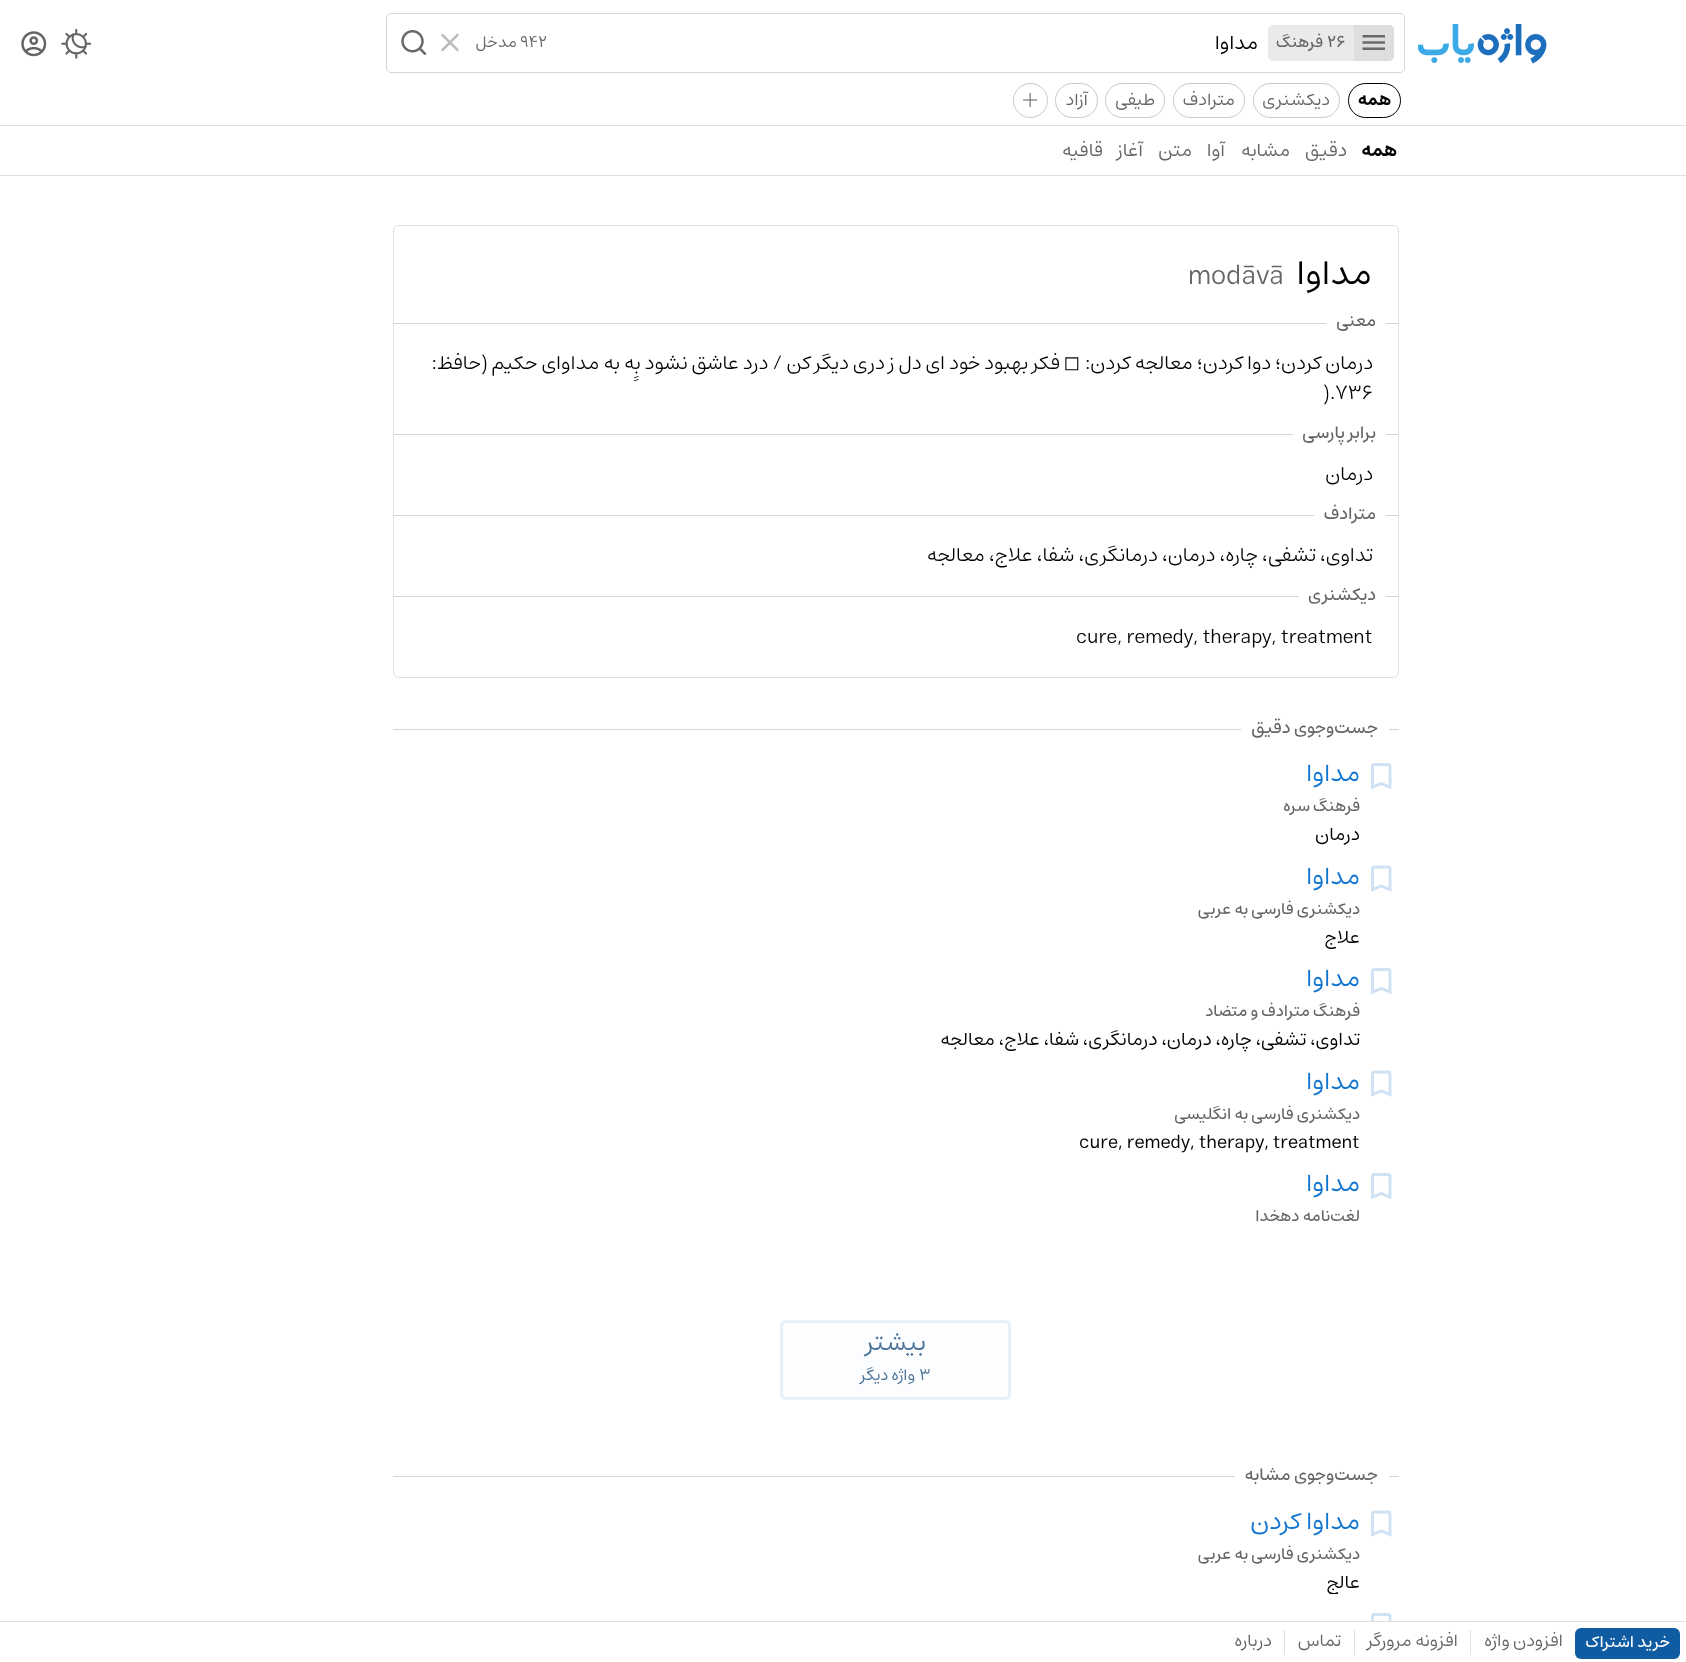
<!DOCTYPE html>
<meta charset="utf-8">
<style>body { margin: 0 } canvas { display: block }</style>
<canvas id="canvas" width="1686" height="1662"></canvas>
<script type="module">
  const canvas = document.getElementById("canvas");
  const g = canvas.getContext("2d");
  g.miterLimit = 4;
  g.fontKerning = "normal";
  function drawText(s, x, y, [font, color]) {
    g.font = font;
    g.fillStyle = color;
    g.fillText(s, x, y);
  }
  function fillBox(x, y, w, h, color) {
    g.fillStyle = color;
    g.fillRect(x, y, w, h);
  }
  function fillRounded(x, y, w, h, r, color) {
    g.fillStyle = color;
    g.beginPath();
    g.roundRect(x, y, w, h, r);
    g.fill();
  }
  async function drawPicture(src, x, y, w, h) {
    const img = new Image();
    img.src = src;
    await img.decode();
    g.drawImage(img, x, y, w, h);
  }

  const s1 = ["500 16.25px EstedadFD", "#656565"];
  const s2 = ["20px EstedadFD", "#000000"];
  const s3 = ["16.25px EstedadFD", "#656565"];
  const s4 = ["bold 17.5px EstedadFD", "#000000"];
  const s5 = ["17.5px EstedadFD", "#656565"];
  const s6 = ["100 35px EstedadFD", "#656565"];
  const s7 = ["bold 18.75px EstedadFD", "#000000"];
  const s8 = ["18.75px EstedadFD", "#656565"];
  const s9 = ["35px EstedadFD", "#000000"];
  const s10 = ["300 27.5px EstedadFD", "#656565"];
  const s11 = ["500 17.5px EstedadFD", "#656565"];
  const s12 = ["300 20px EstedadFD", "#000000"];
  const s13 = ["20px DejaVu Sans", "#000000"];
  const s14 = ["25px EstedadFD", "#1276D1"];
  const s15 = ["18.75px EstedadFD", "#000000"];
  const s16 = ["25px EstedadFD", "#487095"];
  const s17 = ["16.25px EstedadFD", "#487095"];
  const s18 = ["500 16.25px EstedadFD", "#FFFFFF"];

  fillBox(0, 0, 1686, 1662, "#FFFFFF");
  fillBox(0, 175, 1686, 1, "#E0E0E0");
  await drawPicture("pic1.png", 1418, 24, 129, 40);
  g.beginPath();
  g.roundRect(386.5, 13.5, 1018, 59, 4.5);
  g.strokeStyle = "#D6D6D6";
  g.stroke();
  fillRounded(1268, 25, 126, 36, 5, "#EAEAEA");
  g.fillStyle = "#DEDEDE";
  g.beginPath();
  g.roundRect(1354, 25, 40, 36, [0, 5, 5, 0]);
  g.fill();
  await drawPicture("pic2.png", 1362, 35, 23, 15);
  drawText("26", 1327, 47, s1);
  g.direction = "rtl";
  drawText("فرهنگ", 1323, 47, s1);
  drawText("مداوا", 1258, 49, s2);
  g.direction = "ltr";
  drawText("942", 520, 47, s3);
  g.direction = "rtl";
  drawText("مدخل", 517, 47, s3);
  await drawPicture("pic3.png", 441, 33, 18, 19);
  await drawPicture("pic4.png", 401, 30, 26, 25);
  await drawPicture("pic5.png", 61, 29, 30, 30);
  await drawPicture("pic6.png", 21, 31, 26, 26);
  g.beginPath();
  g.roundRect(1348.5, 83.5, 52, 34, 17);
  g.strokeStyle = "#000000";
  g.stroke();
  drawText("همه", 1391, 105, s4);
  g.beginPath();
  g.roundRect(1253.5, 83.5, 86, 34, 17);
  g.strokeStyle = "#CACACA";
  g.stroke();
  drawText("دیکشنری", 1330, 105, s5);
  g.beginPath();
  g.roundRect(1173.5, 83.5, 71, 34, 17);
  g.stroke();
  drawText("مترادف", 1235, 105, s5);
  g.beginPath();
  g.roundRect(1105.5, 83.5, 59, 34, 17);
  g.stroke();
  drawText("طیفی", 1155, 105, s5);
  g.beginPath();
  g.roundRect(1055.5, 83.5, 42, 34, 17);
  g.stroke();
  drawText("آزاد", 1088, 105, s5);
  g.beginPath();
  g.arc(1030.5, 100.5, 17, 0, Math.PI * 2);
  g.stroke();
  g.direction = "ltr";
  drawText("+", 1020, 110, s6);
  fillBox(0, 125, 1686, 1, "#E0E0E0");
  g.direction = "rtl";
  drawText("همه", 1397, 156, s7);
  drawText("دقیق", 1347, 156, s8);
  drawText("مشابه", 1290, 156, s8);
  drawText("آوا", 1225, 156, s8);
  drawText("متن", 1192, 156, s8);
  drawText("آغاز", 1143, 156, s8);
  drawText("قافیه", 1103, 156, s8);
  g.beginPath();
  g.roundRect(393.5, 225.5, 1005, 452, 5.5);
  g.strokeStyle = "#E0E0E0";
  g.stroke();
  drawText("مداوا", 1372, 284, s9);
  g.direction = "ltr";
  drawText("modāvā", 1188, 284, s10);
  fillBox(1386, 323, 12, 1, "#D6D6D6");
  g.direction = "rtl";
  drawText("معنی", 1376, 326, s11);
  fillBox(394, 323, 932, 1, "#D6D6D6");
  drawText("درمان کردن؛ دوا کردن؛ معالجه کردن:", 1373, 369, s12);
  drawText("◻︎", 1080, 369, s13);
  drawText("فکر بهبود خود ای دل ز دری دیگر کن / درد عاشق نشود بِِه به‌ مداوای حکیم (حافظ:", 1060, 369, s12);
  g.direction = "ltr";
  drawText(").۷۳۶", 1323, 399, s12);
  fillBox(1386, 434, 12, 1, "#D6D6D6");
  g.direction = "rtl";
  drawText("برابر پارسی", 1376, 438, s11);
  fillBox(394, 434, 899, 1, "#D6D6D6");
  drawText("درمان", 1373, 480, s12);
  fillBox(1386, 515, 12, 1, "#D6D6D6");
  drawText("مترادف", 1376, 519, s11);
  fillBox(394, 515, 920, 1, "#D6D6D6");
  drawText("تداوی، تشفی، چاره، درمان، درمانگری، شفا، علاج، معالجه", 1373, 561, s12);
  fillBox(1386, 596, 12, 1, "#D6D6D6");
  drawText("دیکشنری", 1376, 600, s11);
  fillBox(394, 596, 905, 1, "#D6D6D6");
  g.direction = "ltr";
  drawText("cure, remedy, therapy, treatment", 1076, 643, s12);
  fillBox(1389, 729, 10, 1, "#D6D6D6");
  g.direction = "rtl";
  drawText("جست‌وجوی دقیق", 1378, 733, s11);
  fillBox(393, 729, 848, 1, "#D6D6D6");
  await drawPicture("pic7.png", 1371, 763, 21, 27);
  drawText("مداوا", 1360, 781, s14);
  drawText("فرهنگ سره", 1360, 811, s1);
  drawText("درمان", 1360, 840, s15);
  await drawPicture("pic8.png", 1371, 865, 21, 27);
  drawText("مداوا", 1360, 884, s14);
  drawText("دیکشنری فارسی به عربی", 1360, 914, s1);
  drawText("علاج", 1360, 943, s15);
  await drawPicture("pic7.png", 1371, 968, 21, 27);
  drawText("مداوا", 1360, 986, s14);
  drawText("فرهنگ مترادف و متضاد", 1360, 1016, s1);
  drawText("تداوی، تشفی، چاره، درمان، درمانگری، شفا، علاج، معالجه", 1360, 1045, s15);
  await drawPicture("pic8.png", 1371, 1070, 21, 27);
  drawText("مداوا", 1360, 1089, s14);
  drawText("دیکشنری فارسی به انگلیسی", 1360, 1119, s1);
  g.direction = "ltr";
  drawText("cure, remedy, therapy, treatment", 1079, 1148, s15);
  await drawPicture("pic7.png", 1371, 1173, 21, 27);
  g.direction = "rtl";
  drawText("مداوا", 1360, 1191, s14);
  drawText("لغت‌نامه دهخدا", 1360, 1221, s1);
  g.fillStyle = "#FBFDFF";
  g.beginPath();
  g.roundRect(781.5, 1321.5, 228, 77, 4.5);
  g.fill();
  g.strokeStyle = "#E7F0F9";
  g.lineWidth = 3;
  g.stroke();
  drawText("بیشتر", 926, 1350, s16);
  g.direction = "ltr";
  drawText("۳", 919, 1380, s17);
  g.direction = "rtl";
  drawText("واژه دیگر", 915, 1380, s17);
  fillBox(1389, 1476, 10, 1, "#D6D6D6");
  drawText("جست‌وجوی مشابه", 1378, 1480, s11);
  fillBox(393, 1476, 842, 1, "#D6D6D6");
  await drawPicture("pic8.png", 1371, 1510, 21, 27);
  drawText("مداوا کردن", 1360, 1529, s14);
  drawText("دیکشنری فارسی به عربی", 1360, 1559, s1);
  g.save();
  g.beginPath();
  g.rect(405, 1571, 955, 23);
  g.clip();
  drawText("عالج", 1360, 1588, s15);
  g.restore();
  await drawPicture("pic9.png", 1371, 1613, 21, 8);
  fillBox(0, 1621, 1686, 1, "#E0E0E0");
  fillRounded(1575, 1628, 105, 31, 6, "#0F5CA2");
  drawText("خرید اشتراک", 1670, 1647, s18);
  drawText("افزودن واژه", 1563, 1646, s5);
  fillBox(1470, 1630, 1, 25, "#E0E0E0");
  drawText("افزونه مرورگر", 1458, 1646, s5);
  fillBox(1354, 1630, 1, 25, "#E0E0E0");
  drawText("تماس", 1341, 1646, s5);
  fillBox(1284, 1630, 1, 25, "#E0E0E0");
  drawText("درباره", 1272, 1646, s5);
</script>
